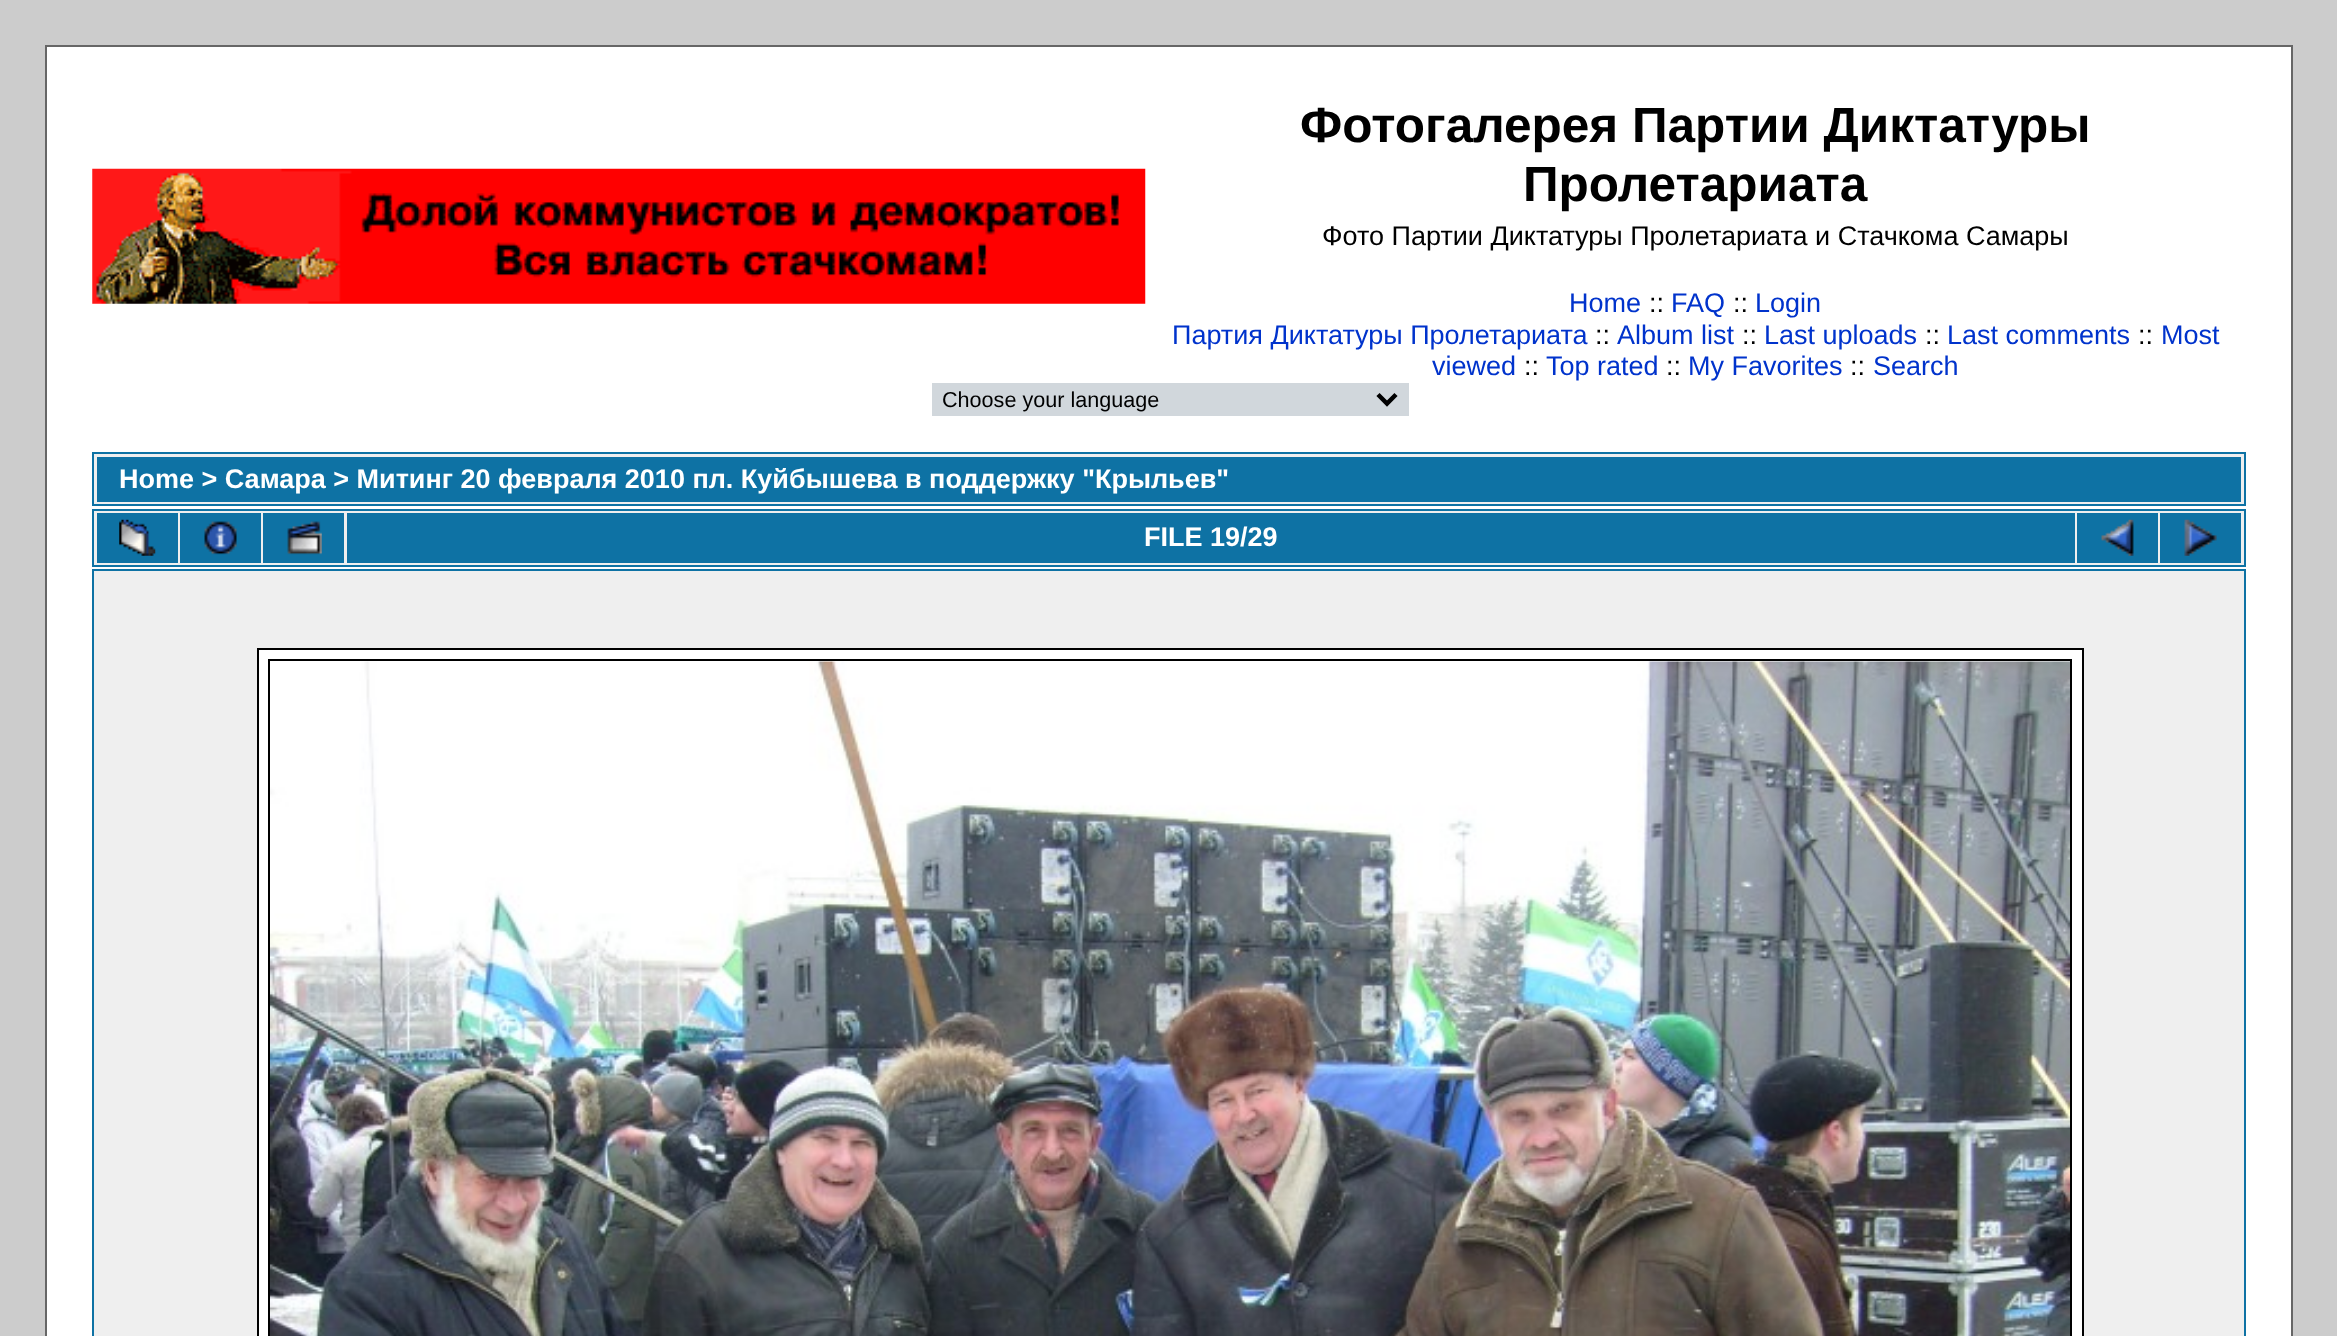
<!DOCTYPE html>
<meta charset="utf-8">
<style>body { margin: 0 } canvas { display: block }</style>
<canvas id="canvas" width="2337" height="1336"></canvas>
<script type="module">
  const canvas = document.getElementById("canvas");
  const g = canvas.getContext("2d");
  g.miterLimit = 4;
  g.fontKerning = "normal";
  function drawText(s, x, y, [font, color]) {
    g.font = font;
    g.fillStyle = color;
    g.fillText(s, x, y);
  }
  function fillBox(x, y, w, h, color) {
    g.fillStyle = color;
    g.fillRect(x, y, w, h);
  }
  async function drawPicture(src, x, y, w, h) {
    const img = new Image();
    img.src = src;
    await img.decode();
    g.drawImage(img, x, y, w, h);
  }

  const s1 = ["bold 49.5px Liberation Sans", "#000000"];
  const s2 = ["27px Liberation Sans", "#000000"];
  const s3 = ["27px Liberation Sans", "#0033CC"];
  const s4 = ["21.6px Liberation Sans", "#000000"];
  const s5 = ["bold 27px Liberation Sans", "#FFFFFF"];

  fillBox(0, 0, 2337, 1336, "#CCCCCC");
  g.fillStyle = "#FFFFFF";
  g.beginPath();
  g.rect(46, 46, 2246, 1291);
  g.fill();
  g.strokeStyle = "#666666";
  g.lineWidth = 2;
  g.stroke();
  await drawPicture("pic1.png", 92, 168, 1054, 136);
  drawText("Фотогалерея Партии Диктатуры", 1300, 142, s1);
  drawText("Пролетариата", 1523, 201, s1);
  drawText("Фото Партии Диктатуры Пролетариата и Стачкома Самары", 1322, 245, s2);
  drawText("Home", 1569, 312, s3);
  drawText("::", 1649, 312, s2);
  drawText("FAQ", 1671, 312, s3);
  drawText("::", 1733, 312, s2);
  drawText("Login", 1755, 312, s3);
  drawText("Партия Диктатуры Пролетариата", 1172, 344, s3);
  drawText("::", 1595, 344, s2);
  drawText("Album list", 1617, 344, s3);
  drawText("::", 1742, 344, s2);
  drawText("Last uploads", 1764, 344, s3);
  drawText("::", 1925, 344, s2);
  drawText("Last comments", 1947, 344, s3);
  drawText("::", 2138, 344, s2);
  drawText("Most", 2161, 344, s3);
  drawText("viewed", 1432, 375, s3);
  drawText("::", 1524, 375, s2);
  drawText("Top rated", 1546, 375, s3);
  drawText("::", 1666, 375, s2);
  drawText("My Favorites", 1688, 375, s3);
  drawText("::", 1850, 375, s2);
  drawText("Search", 1873, 375, s3);
  fillBox(932, 383, 477, 33, "#D1D7DC");
  g.beginPath();
  g.moveTo(1378, 394.5);
  g.lineTo(1387, 403.5);
  g.lineTo(1396, 394.5);
  g.strokeStyle = "#000000";
  g.lineWidth = 4.5;
  g.stroke();
  g.save();
  g.beginPath();
  g.rect(943, 385, 427, 29);
  g.clip();
  drawText("Choose your language", 942, 407, s4);
  g.restore();
  g.fillStyle = "#EFEFEF";
  g.beginPath();
  g.rect(93, 453, 2152, 52);
  g.fill();
  g.strokeStyle = "#0E72A4";
  g.lineWidth = 2;
  g.stroke();
  fillBox(97, 457, 2144, 45, "#0E72A4");
  drawText("Home > Самара > Митинг 20 февраля 2010 пл. Куйбышева в поддержку \"Крыльев\"", 119, 488, s5);
  g.fillStyle = "#EFEFEF";
  g.beginPath();
  g.rect(93, 510, 2152, 56);
  g.fill();
  g.stroke();
  fillBox(97, 513, 81, 50, "#0E72A4");
  await drawPicture("pic2.png", 119, 519, 37, 37);
  fillBox(180, 513, 81, 50, "#0E72A4");
  await drawPicture("pic3.png", 204, 521, 33, 34);
  fillBox(263, 513, 81, 50, "#0E72A4");
  await drawPicture("pic4.png", 287, 521, 35, 34);
  fillBox(347, 513, 1728, 50, "#0E72A4");
  drawText("FILE 19/29", 1144, 546, s5);
  fillBox(2077, 513, 81, 50, "#0E72A4");
  await drawPicture("pic5.png", 2101, 519, 33, 37);
  fillBox(2160, 513, 81, 50, "#0E72A4");
  await drawPicture("pic6.png", 2184, 519, 33, 37);
  g.fillStyle = "#EFEFEF";
  g.beginPath();
  g.rect(93, 570, 2152, 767);
  g.fill();
  g.stroke();
  g.fillStyle = "#FFFFFF";
  g.beginPath();
  g.rect(258, 649, 1825, 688);
  g.fill();
  g.strokeStyle = "#000000";
  g.stroke();
  g.strokeRect(269, 660, 1802, 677);
  await drawPicture("pic7.png", 270, 661, 1800, 675);
</script>
